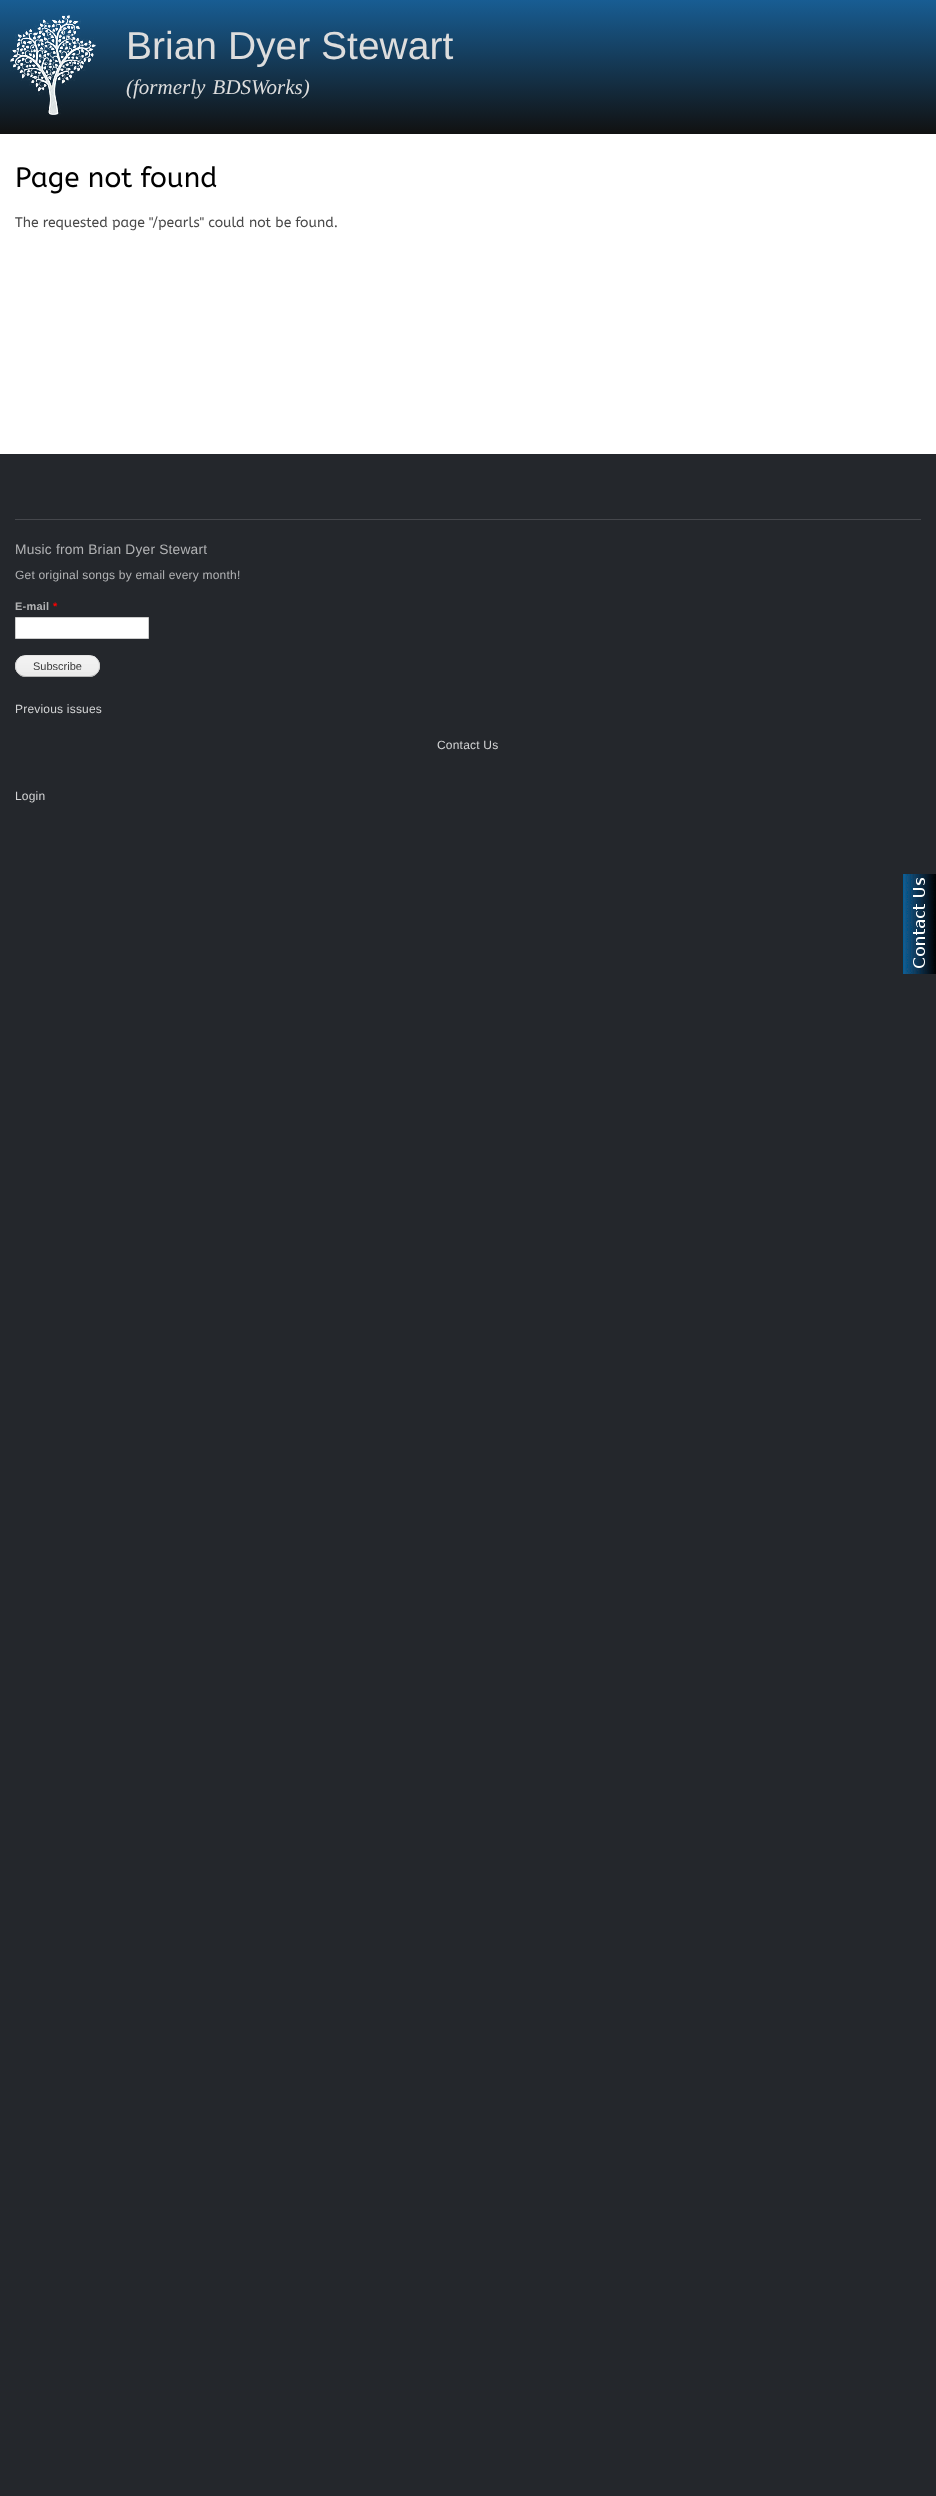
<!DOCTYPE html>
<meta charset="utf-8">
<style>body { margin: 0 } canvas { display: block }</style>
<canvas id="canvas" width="936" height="2496"></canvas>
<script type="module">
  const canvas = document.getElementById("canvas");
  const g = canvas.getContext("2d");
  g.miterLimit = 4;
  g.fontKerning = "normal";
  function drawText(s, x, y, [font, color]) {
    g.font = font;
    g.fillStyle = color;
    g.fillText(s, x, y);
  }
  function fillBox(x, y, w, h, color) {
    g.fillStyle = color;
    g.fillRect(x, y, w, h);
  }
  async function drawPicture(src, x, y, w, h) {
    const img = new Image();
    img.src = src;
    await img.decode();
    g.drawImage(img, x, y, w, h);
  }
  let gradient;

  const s1 = ["39px Liberation Sans", "#DDDDDD"];
  const s2 = ["italic 21px Liberation Serif", "#DDDDDD"];
  const s3 = ["28px ABeeZee", "#000000"];
  const s4 = ["14px ABeeZee", "#4A4A4A"];
  const s5 = ["13.75px Liberation Sans", "#B2B3B5"];
  const s6 = ["12px Liberation Sans", "#B2B3B5"];
  const s7 = ["bold 11px Liberation Sans", "#B2B3B5"];
  const s8 = ["bold 11px Liberation Sans", "#FF0000"];
  const s9 = ["11px Liberation Sans", "#3A3A3A"];
  const s10 = ["12px Liberation Sans", "#D3D4D5"];

  fillBox(0, 0, 936, 2496, "#24272C");
  fillBox(0, 134, 936, 320, "#FFFFFF");
  gradient = g.createLinearGradient(468, 0, 468, 134);
  gradient.addColorStop(0, "#185D93");
  gradient.addColorStop(1, "#111111");
  g.fillStyle = gradient;
  g.fillRect(0, 0, 936, 134);
  await drawPicture("pic1.png", 10, 15, 86, 100);
  drawText("Brian Dyer Stewart", 126, 59, s1);
  g.wordSpacing = "2px";
  drawText("(formerly BDSWorks)", 126, 94, s2);
  g.wordSpacing = "0px";
  drawText("Page not found", 15, 187, s3);
  drawText("The requested page \"/pearls\" could not be found.", 15, 227, s4);
  fillBox(15, 519, 906, 1, "#45474C");
  g.letterSpacing = "0.2px";
  drawText("Music from Brian Dyer Stewart", 15, 554, s5);
  drawText("Get original songs by email every month!", 15, 579, s6);
  drawText("E-mail", 15, 610, s7);
  drawText("*", 53, 610, s8);
  g.fillStyle = "#FFFFFF";
  g.beginPath();
  g.rect(15.5, 617.5, 133, 21);
  g.fill();
  g.strokeStyle = "#CCCCCC";
  g.stroke();
  await drawPicture("pic2.png", 15, 656, 85, 21);
  g.beginPath();
  g.moveTo(18.5, 658.5);
  g.bezierCurveTo(20.5, 656.5, 23, 655.5, 26, 655.5);
  g.lineTo(89, 655.5);
  g.bezierCurveTo(92, 655.5, 94.5, 656.5, 96.5, 658.5);
  g.strokeStyle = "#E4E4E4";
  g.stroke();
  g.beginPath();
  g.moveTo(96.5, 658.5);
  g.bezierCurveTo(100.5, 662.5, 100.5, 669.5, 96.5, 673.5);
  g.strokeStyle = "#D2D2D2";
  g.stroke();
  g.beginPath();
  g.moveTo(96.5, 673.5);
  g.bezierCurveTo(94.5, 675.5, 92, 676.5, 89, 676.5);
  g.lineTo(26, 676.5);
  g.bezierCurveTo(23, 676.5, 20.5, 675.5, 18.5, 673.5);
  g.strokeStyle = "#B4B4B4";
  g.stroke();
  g.beginPath();
  g.moveTo(18.5, 673.5);
  g.bezierCurveTo(14.5, 669.5, 14.5, 662.5, 18.5, 658.5);
  g.strokeStyle = "#D2D2D2";
  g.stroke();
  g.letterSpacing = "0px";
  drawText("Subscribe", 33, 670, s9);
  g.letterSpacing = "0.2px";
  drawText("Previous issues", 15, 713, s10);
  drawText("Contact Us", 437, 749, s10);
  drawText("Login", 15, 800, s10);
  await drawPicture("pic3.png", 903, 874, 33, 100);
</script>
